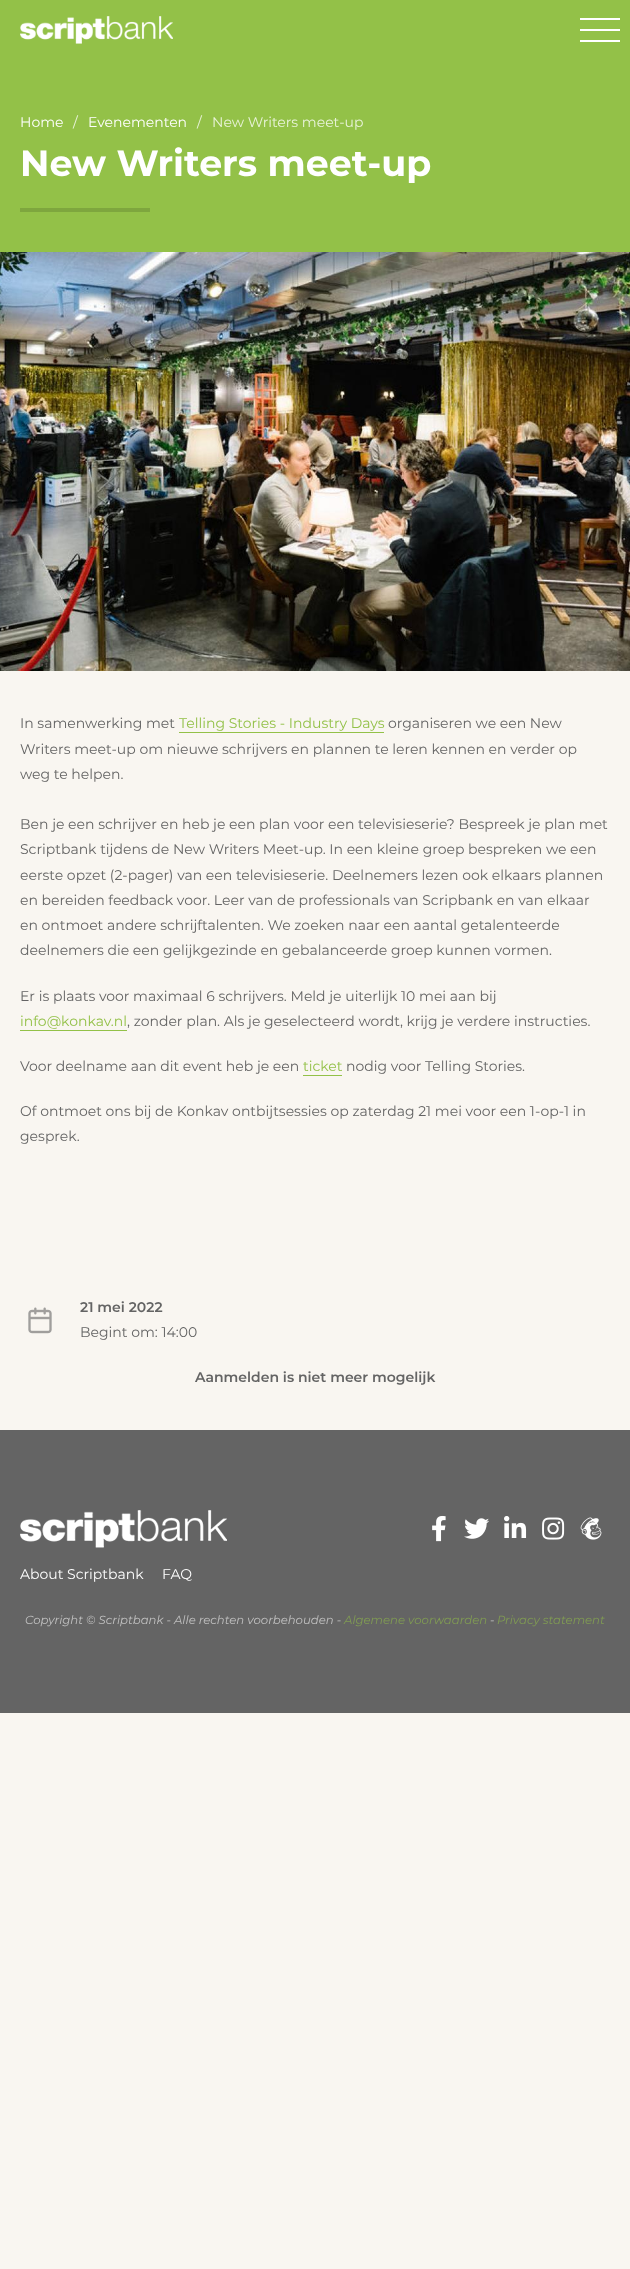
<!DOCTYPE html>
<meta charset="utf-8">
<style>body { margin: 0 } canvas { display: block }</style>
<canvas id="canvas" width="630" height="2269"></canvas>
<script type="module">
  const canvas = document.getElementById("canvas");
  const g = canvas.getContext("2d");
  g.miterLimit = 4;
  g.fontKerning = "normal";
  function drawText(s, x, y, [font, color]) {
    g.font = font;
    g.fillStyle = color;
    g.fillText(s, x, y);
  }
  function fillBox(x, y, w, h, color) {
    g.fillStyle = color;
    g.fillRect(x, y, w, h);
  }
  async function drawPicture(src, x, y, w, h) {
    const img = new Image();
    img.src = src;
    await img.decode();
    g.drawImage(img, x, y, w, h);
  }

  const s1 = ["14px Montserrat", "#FFFFFF"];
  const s2 = ["14px Montserrat", "#E9F3DA"];
  const s3 = ["bold 36.4px Montserrat", "#FFFFFF"];
  const s4 = ["14px Montserrat", "#646464"];
  const s5 = ["14px Montserrat", "#93C148"];
  const s6 = ["600 14px Montserrat", "#646464"];
  const s7 = ["italic 11.7px Montserrat", "#C1C1C1"];
  const s8 = ["italic 11.7px Montserrat", "#809C53"];

  fillBox(0, 0, 630, 2269, "#F9F6F1");
  fillBox(0, 0, 630, 252, "#93C148");
  await drawPicture("pic1.png", 20, 16, 153, 28);
  fillBox(580, 18, 40, 2, "#FFFFFF");
  fillBox(580, 29, 40, 2, "#FFFFFF");
  fillBox(580, 40, 40, 2, "#FFFFFF");
  drawText("Home", 20, 127, s1);
  drawText("/", 73, 127, s2);
  drawText("Evenementen", 88, 127, s1);
  drawText("/", 197, 127, s2);
  drawText("New Writers meet-up", 212, 127, s2);
  drawText("New Writers meet-up", 20, 176, s3);
  fillBox(20, 208, 130, 4, "#7EA63E");
  await drawPicture("pic2.png", 0, 252, 630, 419);
  drawText("In samenwerking met", 20, 728, s4);
  drawText("Telling Stories - Industry Days", 179, 728, s5);
  fillBox(179, 732, 205, 1, "#93C148");
  drawText("organiseren we een New", 388, 728, s4);
  drawText("Writers meet-up om nieuwe schrijvers en plannen te leren kennen en verder op", 20, 754, s4);
  drawText("weg te helpen.", 20, 779, s4);
  drawText("Ben je een schrijver en heb je een plan voor een televisieserie? Bespreek je plan met", 20, 829, s4);
  drawText("Scriptbank tijdens de New Writers Meet-up. In een kleine groep bespreken we een", 20, 854, s4);
  drawText("eerste opzet (2-pager) van een televisieserie. Deelnemers lezen ook elkaars plannen", 20, 880, s4);
  drawText("en bereiden feedback voor. Leer van de professionals van Scripbank en van elkaar", 20, 905, s4);
  drawText("en ontmoet andere schrijftalenten. We zoeken naar een aantal getalenteerde", 20, 930, s4);
  drawText("deelnemers die een gelijkgezinde en gebalanceerde groep kunnen vormen.", 20, 955, s4);
  drawText("Er is plaats voor maximaal 6 schrijvers. Meld je uiterlijk 10 mei aan bij", 20, 1001, s4);
  drawText("info@konkav.nl", 20, 1026, s5);
  fillBox(20, 1030, 107, 1, "#93C148");
  drawText(", zonder plan. Als je geselecteerd wordt, krijg je verdere instructies.", 127, 1026, s4);
  drawText("Voor deelname aan dit event heb je een", 20, 1071, s4);
  drawText("ticket", 303, 1071, s5);
  fillBox(303, 1075, 39, 1, "#93C148");
  drawText("nodig voor Telling Stories.", 346, 1071, s4);
  drawText("Of ontmoet ons bij de Konkav ontbijtsessies op zaterdag 21 mei voor een 1-op-1 in", 20, 1116, s4);
  drawText("gesprek.", 20, 1141, s4);
  await drawPicture("pic3.png", 28, 1307, 24, 27);
  drawText("21 mei 2022", 80, 1312, s6);
  drawText("Begint om: 14:00", 80, 1337, s4);
  drawText("Aanmelden is niet meer mogelijk", 195, 1382, s6);
  fillBox(0, 1430, 630, 283, "#646464");
  await drawPicture("pic4.png", 20, 1510, 207, 38);
  await drawPicture("pic5.png", 432, 1515, 14, 27);
  await drawPicture("pic6.png", 464, 1518, 25, 21);
  await drawPicture("pic7.png", 504, 1516, 23, 22);
  await drawPicture("pic8.png", 542, 1517, 23, 23);
  await drawPicture("pic9.png", 580, 1517, 22, 23);
  drawText("About Scriptbank", 20, 1579, s1);
  drawText("FAQ", 162, 1579, s1);
  drawText("Copyright © Scriptbank - Alle rechten voorbehouden -", 25, 1624, s7);
  drawText("Algemene voorwaarden", 344, 1624, s8);
  drawText("-", 490, 1624, s7);
  drawText("Privacy statement", 497, 1624, s8);
</script>
